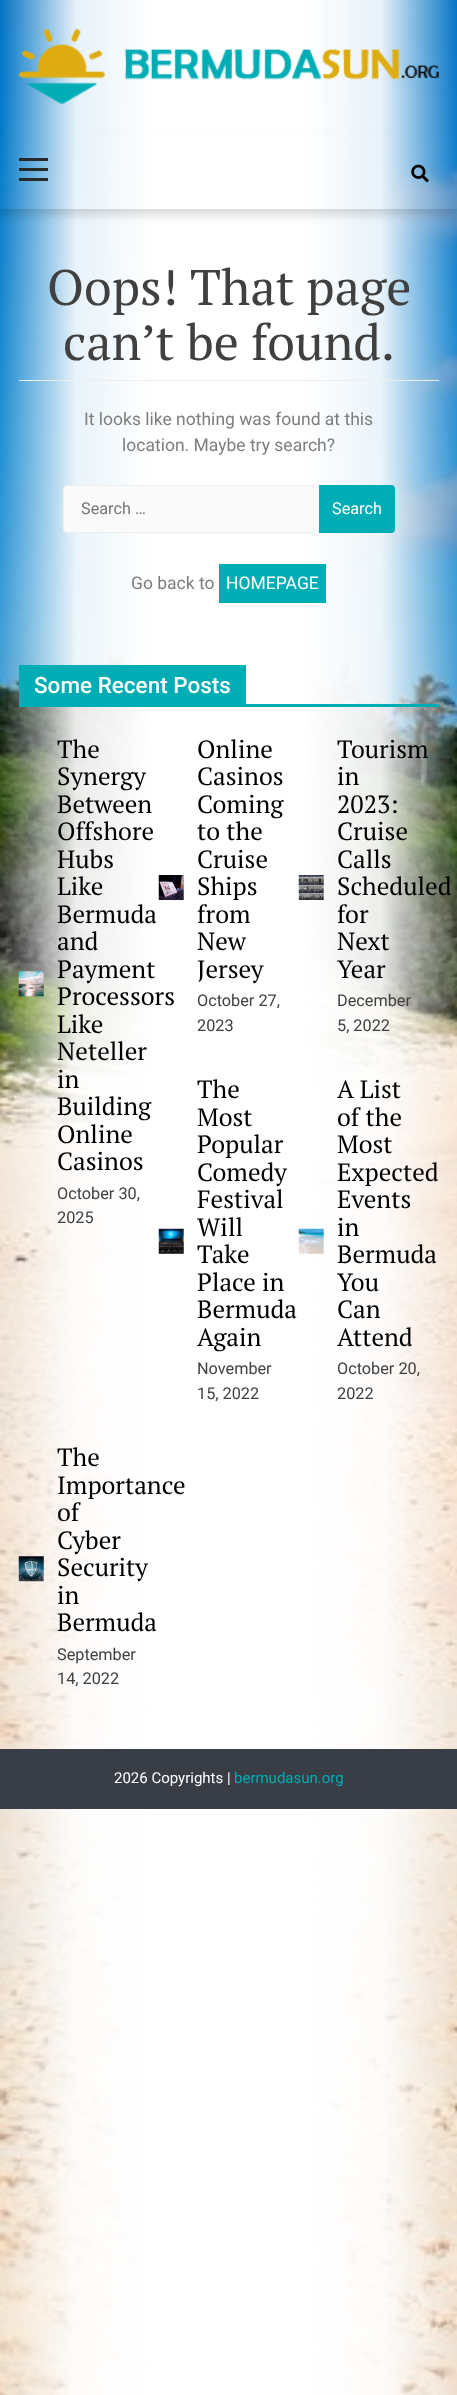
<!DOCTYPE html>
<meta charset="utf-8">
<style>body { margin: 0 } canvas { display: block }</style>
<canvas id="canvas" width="457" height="2395"></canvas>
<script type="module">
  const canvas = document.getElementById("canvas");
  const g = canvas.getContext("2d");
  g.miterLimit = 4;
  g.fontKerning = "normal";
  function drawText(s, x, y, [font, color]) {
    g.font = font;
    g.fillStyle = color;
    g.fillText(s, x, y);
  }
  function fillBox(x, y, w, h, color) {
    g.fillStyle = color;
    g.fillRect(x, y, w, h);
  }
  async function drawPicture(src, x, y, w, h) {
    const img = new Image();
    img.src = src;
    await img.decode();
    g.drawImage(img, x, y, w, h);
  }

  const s1 = ["50px PT Serif", "#404040"];
  const s2 = ["17.5px Roboto", "#7D7D7D"];
  const s3 = ["16.25px Roboto", "#757575"];
  const s4 = ["16.25px Roboto", "#FFFFFF"];
  const s5 = ["17.5px Roboto", "#FFFFFF"];
  const s6 = ["500 22.5px Roboto", "#FFFFFF"];
  const s7 = ["25px PT Serif", "#000000"];
  const s8 = ["16.25px Roboto", "#404040"];
  const s9 = ["15px Roboto", "#FFFFFF"];
  const s10 = ["15px Roboto", "#00ADB5"];

  fillBox(0, 0, 457, 2395, "#FFFFFF");
  await drawPicture("pic1.png", 0, 0, 457, 2395);
  await drawPicture("pic2.png", 18, 28, 421, 76);
  g.save();
  g.beginPath();
  g.moveTo(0, 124);
  g.lineTo(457, 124);
  g.lineTo(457, 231);
  g.lineTo(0, 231);
  g.closePath();
  g.moveTo(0, 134);
  g.lineTo(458, 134);
  g.lineTo(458, 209);
  g.lineTo(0, 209);
  g.closePath();
  g.clip("evenodd");
  g.fillStyle = "rgba(0, 0, 0, 0.14)";
  g.filter = "blur(5px)";
  g.beginPath();
  g.rect(0, 140, 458, 75);
  g.fill();
  g.filter = "none";
  g.restore();
  fillBox(19, 168, 29, 3, "#282828");
  fillBox(19, 158, 29, 3, "#282828");
  fillBox(19, 178, 29, 3, "#282828");
  await drawPicture("pic3.png", 411, 164, 18, 19);
  fillBox(19, 380, 420, 1, "#EEEEEE");
  drawText("Oops! That page", 47, 305, s1);
  drawText("can’t be found.", 63, 360, s1);
  drawText("It looks like nothing was found at this", 84, 425, s2);
  drawText("location. Maybe try search?", 122, 451, s2);
  g.fillStyle = "#FAFAFA";
  g.beginPath();
  g.roundRect(63.5, 485.5, 250, 47, [3.5, 0, 0, 3.5]);
  g.fill();
  g.strokeStyle = "#EEEEEE";
  g.stroke();
  drawText("Search …", 81, 514, s3);
  g.fillStyle = "#00ADB5";
  g.beginPath();
  g.roundRect(319, 485, 76, 48, [0, 4, 4, 0]);
  g.fill();
  drawText("Search", 332, 514, s4);
  drawText("Go back to", 131, 589, s2);
  fillBox(219, 564, 107, 39, "#00ADB5");
  drawText("HOMEPAGE", 226, 589, s5);
  fillBox(19, 665, 227, 39, "#00ADB5");
  drawText("Some Recent Posts", 34, 693, s6);
  fillBox(19, 704, 420, 3, "#00ADB5");
  await drawPicture("pic4.png", 18, 971, 26, 26);
  drawText("The", 57, 758, s7);
  drawText("Synergy", 57, 785, s7);
  drawText("Between", 57, 813, s7);
  drawText("Offshore", 57, 840, s7);
  drawText("Hubs", 57, 868, s7);
  drawText("Like", 57, 895, s7);
  drawText("Bermuda", 57, 923, s7);
  drawText("and", 57, 950, s7);
  drawText("Payment", 57, 978, s7);
  drawText("Processors", 57, 1005, s7);
  drawText("Like", 57, 1033, s7);
  drawText("Neteller", 57, 1060, s7);
  drawText("in", 57, 1088, s7);
  drawText("Building", 57, 1115, s7);
  drawText("Online", 57, 1143, s7);
  drawText("Casinos", 57, 1170, s7);
  drawText("October 30,", 57, 1199, s8);
  drawText("2025", 57, 1223, s8);
  await drawPicture("pic5.png", 158, 875, 26, 25);
  drawText("Online", 197, 758, s7);
  drawText("Casinos", 197, 785, s7);
  drawText("Coming", 197, 813, s7);
  drawText("to the", 197, 840, s7);
  drawText("Cruise", 197, 868, s7);
  drawText("Ships", 197, 895, s7);
  drawText("from", 197, 923, s7);
  drawText("New", 197, 950, s7);
  drawText("Jersey", 197, 978, s7);
  drawText("October 27,", 197, 1006, s8);
  drawText("2023", 197, 1031, s8);
  await drawPicture("pic6.png", 298, 875, 26, 25);
  drawText("Tourism", 337, 758, s7);
  drawText("in", 337, 785, s7);
  drawText("2023:", 337, 813, s7);
  drawText("Cruise", 337, 840, s7);
  drawText("Calls", 337, 868, s7);
  drawText("Scheduled", 337, 895, s7);
  drawText("for", 337, 923, s7);
  drawText("Next", 337, 950, s7);
  drawText("Year", 337, 978, s7);
  drawText("December", 337, 1006, s8);
  drawText("5, 2022", 337, 1031, s8);
  await drawPicture("pic7.png", 158, 1228, 26, 26);
  drawText("The", 197, 1098, s7);
  drawText("Most", 197, 1126, s7);
  drawText("Popular", 197, 1153, s7);
  drawText("Comedy", 197, 1181, s7);
  drawText("Festival", 197, 1208, s7);
  drawText("Will", 197, 1236, s7);
  drawText("Take", 197, 1263, s7);
  drawText("Place in", 197, 1291, s7);
  drawText("Bermuda", 197, 1318, s7);
  drawText("Again", 197, 1346, s7);
  drawText("November", 197, 1374, s8);
  drawText("15, 2022", 197, 1399, s8);
  await drawPicture("pic8.png", 298, 1228, 26, 26);
  drawText("A List", 337, 1098, s7);
  drawText("of the", 337, 1126, s7);
  drawText("Most", 337, 1153, s7);
  drawText("Expected", 337, 1181, s7);
  drawText("Events", 337, 1208, s7);
  drawText("in", 337, 1236, s7);
  drawText("Bermuda", 337, 1263, s7);
  drawText("You", 337, 1291, s7);
  drawText("Can", 337, 1318, s7);
  drawText("Attend", 337, 1346, s7);
  drawText("October 20,", 337, 1374, s8);
  drawText("2022", 337, 1399, s8);
  await drawPicture("pic9.png", 18, 1556, 26, 26);
  drawText("The", 57, 1466, s7);
  drawText("Importance", 57, 1494, s7);
  drawText("of", 57, 1521, s7);
  drawText("Cyber", 57, 1549, s7);
  drawText("Security", 57, 1576, s7);
  drawText("in", 57, 1604, s7);
  drawText("Bermuda", 57, 1631, s7);
  drawText("September", 57, 1660, s8);
  drawText("14, 2022", 57, 1684, s8);
  fillBox(0, 1749, 457, 60, "#393E46");
  drawText("2026 Copyrights |", 114, 1783, s9);
  drawText("bermudasun.org", 234, 1783, s10);
</script>
